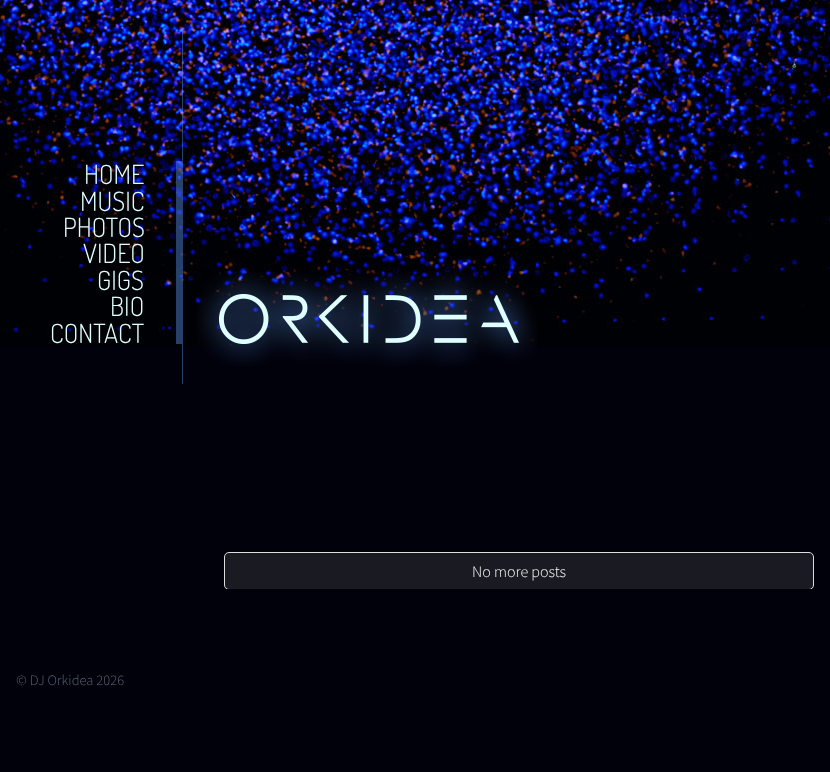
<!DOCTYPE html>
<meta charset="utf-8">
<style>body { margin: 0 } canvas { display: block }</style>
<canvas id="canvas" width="830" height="772"></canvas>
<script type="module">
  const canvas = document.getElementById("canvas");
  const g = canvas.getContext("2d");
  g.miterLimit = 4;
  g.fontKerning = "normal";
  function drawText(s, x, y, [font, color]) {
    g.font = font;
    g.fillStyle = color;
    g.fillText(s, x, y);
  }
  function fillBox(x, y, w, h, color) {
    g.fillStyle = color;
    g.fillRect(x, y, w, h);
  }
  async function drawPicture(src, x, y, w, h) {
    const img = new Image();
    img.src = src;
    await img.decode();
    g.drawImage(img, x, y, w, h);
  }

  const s1 = ["300 26.5px Dosis", "#DFFFFF"];
  const s2 = ["300 16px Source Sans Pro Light", "#FFFFFF"];
  const s3 = ["300 14.5px Source Sans Pro Light", "#5B6677"];

  fillBox(0, 0, 830, 772, "#00010A");
  await drawPicture("pic1.png", 0, 0, 830, 346);
  await drawPicture("pic2.png", 176, 30, 7, 354);
  drawText("HOME", 84, 184, s1);
  drawText("MUSIC", 80, 211, s1);
  drawText("PHOTOS", 63, 237, s1);
  drawText("VIDEO", 83, 263, s1);
  drawText("GIGS", 97, 290, s1);
  drawText("BIO", 110, 316, s1);
  drawText("CONTACT", 50, 343, s1);
  await drawPicture("pic3.png", 197, 272, 340, 94);
  g.save();
  g.beginPath();
  g.rect(224, 542, 590, 47);
  g.clip();
  g.fillStyle = "#1A1A23";
  g.beginPath();
  g.roundRect(224.5, 552.5, 589, 37, 4.5);
  g.fill();
  g.strokeStyle = "#DDDDDD";
  g.stroke();
  g.restore();
  drawText("No more posts", 472, 577, s2);
  drawText("© DJ Orkidea 2026", 16, 685, s3);
</script>
